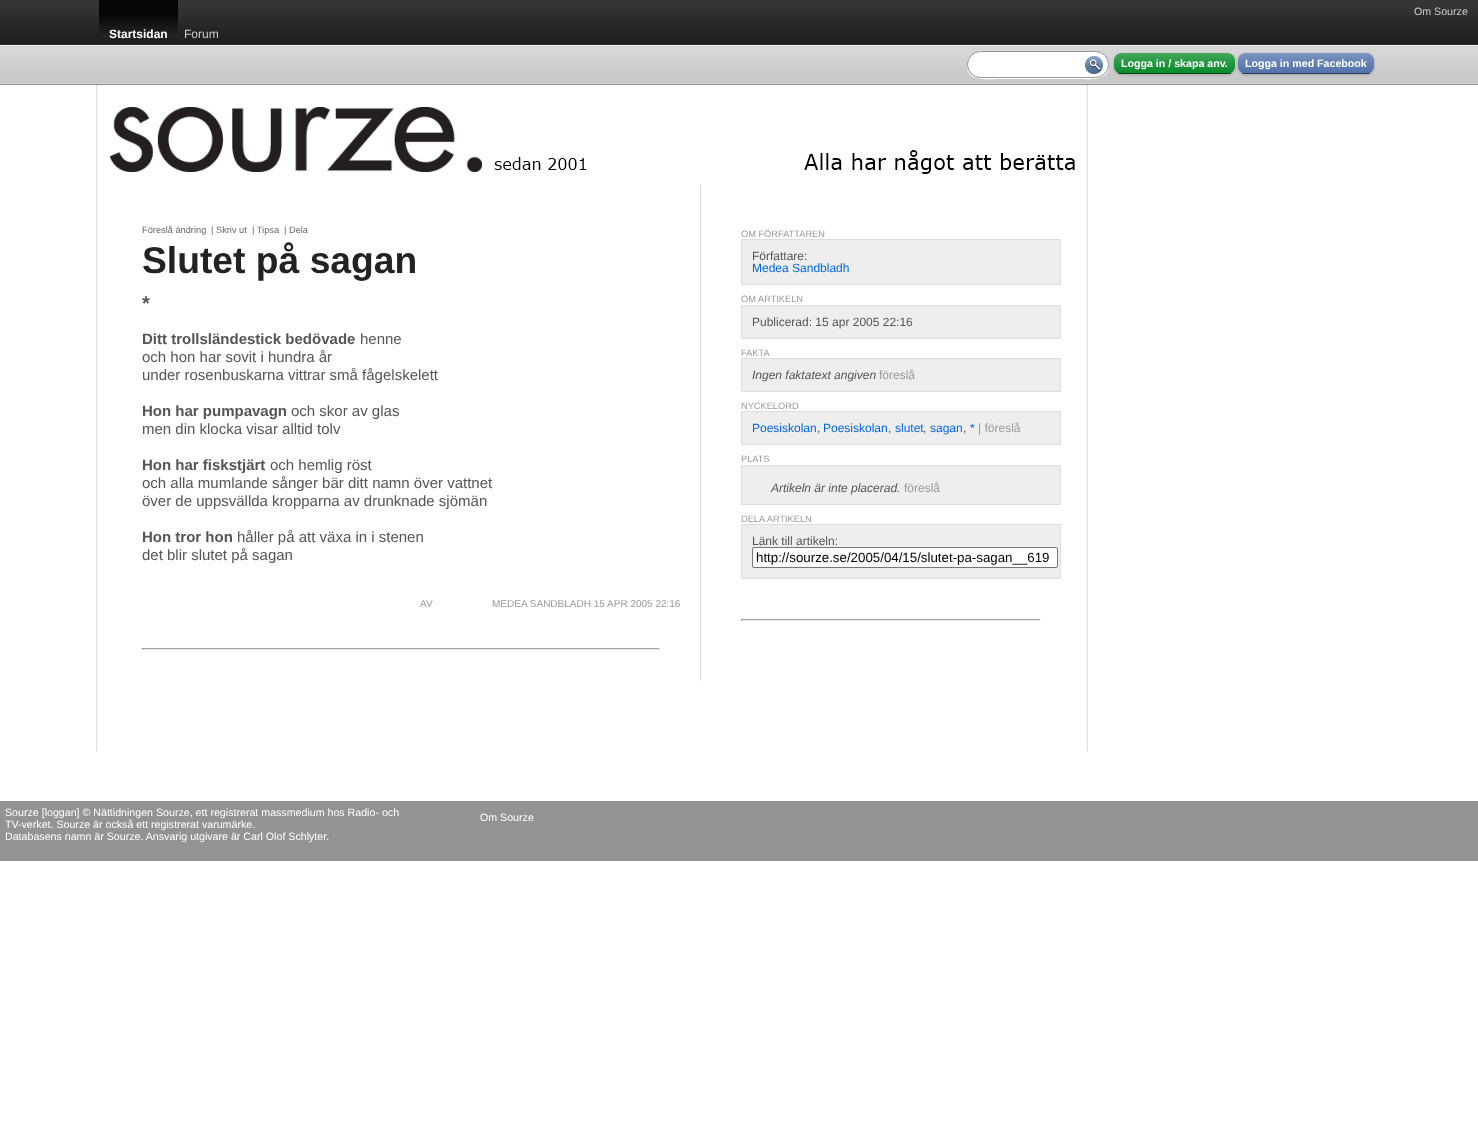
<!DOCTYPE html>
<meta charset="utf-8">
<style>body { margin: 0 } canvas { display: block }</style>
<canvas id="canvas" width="1478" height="1145"></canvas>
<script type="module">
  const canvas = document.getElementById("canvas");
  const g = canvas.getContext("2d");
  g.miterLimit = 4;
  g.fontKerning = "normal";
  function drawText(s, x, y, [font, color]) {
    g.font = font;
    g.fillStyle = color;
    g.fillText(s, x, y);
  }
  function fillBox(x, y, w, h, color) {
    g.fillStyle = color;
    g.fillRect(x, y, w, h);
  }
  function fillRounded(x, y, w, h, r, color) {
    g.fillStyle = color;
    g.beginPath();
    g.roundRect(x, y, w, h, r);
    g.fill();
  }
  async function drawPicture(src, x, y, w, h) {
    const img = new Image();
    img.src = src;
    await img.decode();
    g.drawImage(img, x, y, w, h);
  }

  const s1 = ["10.65px Liberation Sans", "#CCCCCC"];
  const s2 = ["bold 12px Liberation Sans", "#FFFFFF"];
  const s3 = ["12px Liberation Sans", "#CCCCCC"];
  const s4 = ["bold 10.65px Liberation Sans", "#FFFFFF"];
  const s5 = ["9.25px Liberation Sans", "#666666"];
  const s6 = ["bold 37.25px Liberation Sans", "#222222"];
  const s7 = ["bold 20px Liberation Sans", "#555555"];
  const s8 = ["bold 15px Liberation Sans", "#555555"];
  const s9 = ["15px Liberation Sans", "#555555"];
  const s10 = ["10px Liberation Sans", "#999999"];
  const s11 = ["9.25px Liberation Sans", "#999999"];
  const s12 = ["12px Liberation Sans", "#555555"];
  const s13 = ["12px Liberation Sans", "#0066EE"];
  const s14 = ["italic 12px Liberation Sans", "#555555"];
  const s15 = ["12px Liberation Sans", "#999999"];
  const s16 = ["13.3px Liberation Sans", "#000000"];
  const s17 = ["10.65px Liberation Sans", "#FFFFFF"];

  fillBox(0, 0, 1478, 1145, "#FFFFFF");
  await drawPicture("pic1.png", 0, 0, 1478, 45);
  drawText("Om Sourze", 1414, 15, s1);
  await drawPicture("pic2.png", 99, 0, 79, 34);
  drawText("Startsidan", 109, 38, s2);
  drawText("Forum", 184, 38, s3);
  await drawPicture("pic3.png", 0, 45, 1478, 40);
  g.fillStyle = "rgba(0, 0, 0, 0.2)";
  g.filter = "blur(1.5px)";
  g.beginPath();
  g.roundRect(1114, 54, 121, 21, 8);
  g.fill();
  g.filter = "none";
  g.fillStyle = "#FFFFFF";
  g.beginPath();
  g.moveTo(967, 65);
  g.bezierCurveTo(966, 83, 989, 79, 1000, 79);
  g.lineTo(1076, 79);
  g.bezierCurveTo(1087, 79, 1110, 83, 1109, 65);
  g.bezierCurveTo(1109, 72, 1103, 78, 1096, 78);
  g.lineTo(980, 78);
  g.bezierCurveTo(973, 78, 967, 72, 967, 65);
  g.closePath();
  g.fill();
  g.beginPath();
  g.roundRect(967.5, 51.5, 141, 26, 13);
  g.fill();
  g.strokeStyle = "#999999";
  g.stroke();
  await drawPicture("pic4.png", 1085, 56, 18, 18);
  fillRounded(1114, 53, 121, 21, 8, "#008822");
  await drawPicture("pic5.png", 1114, 53, 121, 21);
  fillBox(1118, 73, 113, 1, "rgba(0, 0, 0, 0.5)");
  drawText("Logga in / skapa anv.", 1121, 67, s4);
  g.fillStyle = "rgba(0, 0, 0, 0.2)";
  g.filter = "blur(1.5px)";
  g.beginPath();
  g.roundRect(1238, 54, 136, 21, 8);
  g.fill();
  g.filter = "none";
  fillRounded(1238, 53, 136, 21, 8, "#4C6EA9");
  await drawPicture("pic6.png", 1238, 53, 136, 21);
  fillBox(1242, 73, 128, 1, "rgba(0, 0, 0, 0.5)");
  drawText("Logga in med Facebook", 1245, 67, s4);
  fillBox(96, 85, 1, 666, "#DDDDDD");
  fillBox(1087, 85, 1, 666, "#DDDDDD");
  await drawPicture("pic7.png", 110, 107, 965, 67);
  fillBox(700, 185, 1, 496, "#DDDDDD");
  drawText("Föreslå ändring", 142, 233, s5);
  drawText("| Skriv ut", 211, 233, s5);
  drawText("| Tipsa", 252, 233, s5);
  drawText("| Dela", 284, 233, s5);
  drawText("Slutet på sagan", 142, 273, s6);
  drawText("*", 142, 310, s7);
  drawText("Ditt trollsländestick bedövade", 142, 344, s8);
  drawText("henne", 360, 344, s9);
  drawText("och hon har sovit i hundra år", 142, 362, s9);
  drawText("under rosenbuskarna vittrar små fågelskelett", 142, 380, s9);
  drawText("Hon har pumpavagn", 142, 416, s8);
  drawText("och skor av glas", 291, 416, s9);
  drawText("men din klocka visar alltid tolv", 142, 434, s9);
  drawText("Hon har fiskstjärt", 142, 470, s8);
  drawText("och hemlig röst", 270, 470, s9);
  drawText("och alla mumlande sånger bär ditt namn över vattnet", 142, 488, s9);
  drawText("över de uppsvällda kropparna av drunknade sjömän", 142, 506, s9);
  drawText("Hon tror hon", 142, 542, s8);
  drawText("håller på att växa in i stenen", 237, 542, s9);
  drawText("det blir slutet på sagan", 142, 560, s9);
  drawText("AV", 420, 607, s10);
  drawText("MEDEA SANDBLADH 15 APR 2005 22:16", 492, 607, s10);
  fillBox(142, 648, 518, 1, "#9F9F9F");
  fillBox(659, 648, 1, 2, "#EEEEEE");
  fillBox(142, 649, 518, 1, "#EEEEEE");
  fillBox(142, 648, 1, 2, "#9F9F9F");
  drawText("OM FÖRFATTAREN", 741, 237, s11);
  g.fillStyle = "#EEEEEE";
  g.beginPath();
  g.rect(741.5, 239.5, 319, 45);
  g.fill();
  g.strokeStyle = "#DDDDDD";
  g.stroke();
  drawText("Författare:", 752, 260, s12);
  drawText("Medea Sandbladh", 752, 272, s13);
  drawText("OM ARTIKELN", 741, 302, s11);
  g.fillStyle = "#EEEEEE";
  g.beginPath();
  g.rect(741.5, 305.5, 319, 33);
  g.fill();
  g.stroke();
  drawText("Publicerad: 15 apr 2005 22:16", 752, 326, s12);
  drawText("FAKTA", 741, 356, s11);
  g.fillStyle = "#EEEEEE";
  g.beginPath();
  g.rect(741.5, 358.5, 319, 33);
  g.fill();
  g.stroke();
  drawText("Ingen faktatext angiven", 752, 379, s14);
  drawText("föreslå", 879, 379, s15);
  drawText("NYCKELORD", 741, 409, s11);
  g.fillStyle = "#EEEEEE";
  g.beginPath();
  g.rect(741.5, 411.5, 319, 33);
  g.fill();
  g.stroke();
  drawText("Poesiskolan", 752, 432, s13);
  drawText(",", 817, 432, s12);
  drawText("Poesiskolan", 823, 432, s13);
  drawText(",", 888, 432, s12);
  drawText("slutet", 895, 432, s13);
  drawText(",", 923, 432, s12);
  drawText("sagan", 930, 432, s13);
  drawText(",", 963, 432, s12);
  drawText("*", 970, 432, s13);
  drawText("| föreslå", 978, 432, s15);
  drawText("PLATS", 741, 462, s11);
  g.fillStyle = "#EEEEEE";
  g.beginPath();
  g.rect(741.5, 465.5, 319, 39);
  g.fill();
  g.stroke();
  drawText("Artikeln är inte placerad.", 771, 492, s14);
  drawText("föreslå", 904, 492, s15);
  drawText("DELA ARTIKELN", 741, 522, s11);
  g.fillStyle = "#EEEEEE";
  g.beginPath();
  g.rect(741.5, 524.5, 319, 54);
  g.fill();
  g.stroke();
  drawText("Länk till artikeln:", 752, 545, s12);
  g.fillStyle = "#FFFFFF";
  g.beginPath();
  g.roundRect(752.5, 547.5, 305, 20, 1.5);
  g.fill();
  g.strokeStyle = "#767676";
  g.stroke();
  drawText("http://sourze.se/2005/04/15/slutet-pa-sagan__619", 756, 562, s16);
  fillBox(741, 619, 300, 1, "#9F9F9F");
  fillBox(1040, 619, 1, 2, "#EEEEEE");
  fillBox(741, 620, 300, 1, "#EEEEEE");
  fillBox(741, 619, 1, 2, "#9F9F9F");
  fillBox(0, 801, 1478, 60, "#939393");
  drawText("Sourze [loggan] © Nättidningen Sourze, ett registrerat massmedium hos Radio- och", 5, 816, s17);
  drawText("TV-verket. Sourze är också ett registrerat varumärke.", 5, 828, s17);
  drawText("Databasens namn är Sourze. Ansvarig utgivare är Carl Olof Schlyter.", 5, 840, s17);
  drawText("Om Sourze", 480, 821, s17);
</script>
